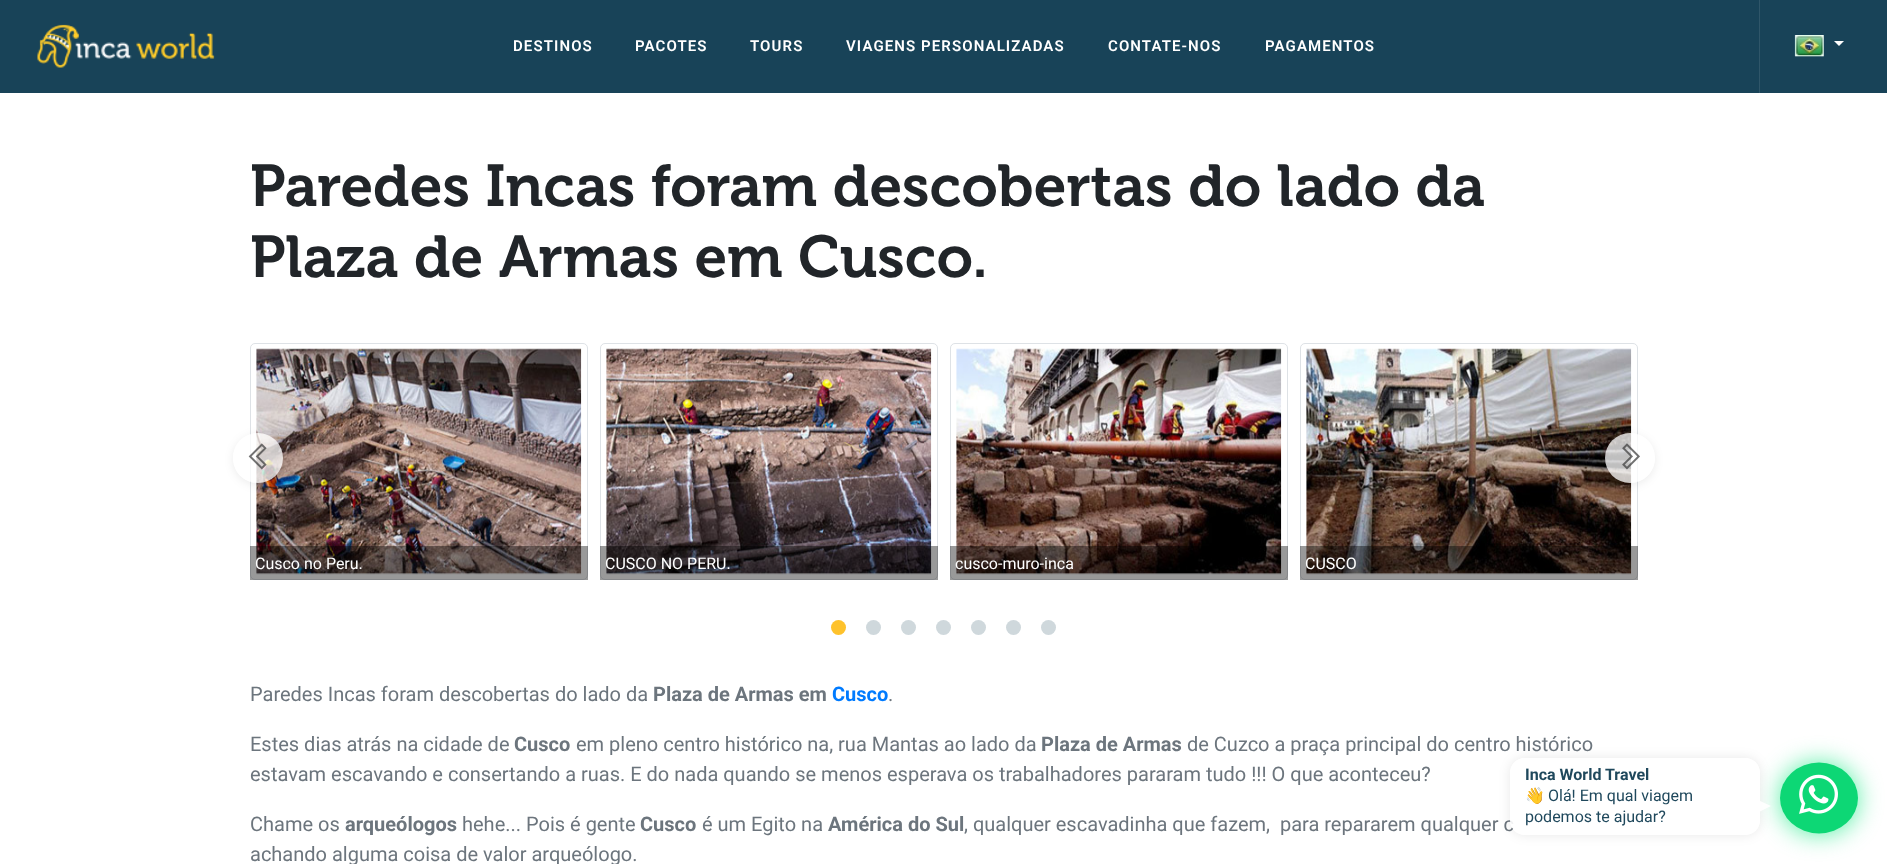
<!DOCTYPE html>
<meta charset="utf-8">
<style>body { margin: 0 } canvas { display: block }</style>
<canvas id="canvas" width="1887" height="864"></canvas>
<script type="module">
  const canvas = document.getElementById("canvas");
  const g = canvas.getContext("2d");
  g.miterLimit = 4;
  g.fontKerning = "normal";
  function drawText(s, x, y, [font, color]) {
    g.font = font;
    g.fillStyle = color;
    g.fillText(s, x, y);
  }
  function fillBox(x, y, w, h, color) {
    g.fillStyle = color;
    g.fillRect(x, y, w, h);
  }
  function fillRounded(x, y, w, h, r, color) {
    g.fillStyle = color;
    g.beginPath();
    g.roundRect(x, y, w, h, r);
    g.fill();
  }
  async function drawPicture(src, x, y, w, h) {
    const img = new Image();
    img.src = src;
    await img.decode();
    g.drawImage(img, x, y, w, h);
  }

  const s1 = ["600 15px Roboto", "#FFFFFF"];
  const s2 = ["58.8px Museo", "#212529"];
  const s3 = ["16px Roboto", "#FFFFFF"];
  const s4 = ["20px Roboto", "#6C757D"];
  const s5 = ["bold 20px Roboto", "#6C757D"];
  const s6 = ["bold 20px Roboto", "#007BFF"];
  const s7 = ["bold 16px Roboto", "#1F485C"];
  const s8 = ["16px Noto Color Emoji", "#1F485C"];
  const s9 = ["16px Roboto", "#1F485C"];

  fillBox(0, 0, 1887, 864, "#FFFFFF");
  fillBox(0, 0, 1887, 93, "#184358");
  await drawPicture("pic1.png", 37, 24, 178, 44);
  g.letterSpacing = "1.1px";
  drawText("DESTINOS", 513, 51, s1);
  drawText("PACOTES", 635, 51, s1);
  drawText("TOURS", 750, 51, s1);
  drawText("VIAGENS PERSONALIZADAS", 846, 51, s1);
  drawText("CONTATE-NOS", 1108, 51, s1);
  drawText("PAGAMENTOS", 1265, 51, s1);
  fillBox(1759, 0, 1, 93, "#2F5669");
  await drawPicture("pic2.png", 1794, 35, 30, 22);
  g.fillStyle = "#FFFFFF";
  g.beginPath();
  g.moveTo(1834, 41);
  g.lineTo(1844, 41);
  g.lineTo(1839, 46);
  g.closePath();
  g.fill();
  g.letterSpacing = "0px";
  drawText("Paredes Incas foram descobertas do lado da", 250, 206, s2);
  drawText("Plaza de Armas em Cusco.", 250, 277, s2);
  g.beginPath();
  g.roundRect(250.5, 343.5, 337, 236, 4.5);
  g.strokeStyle = "#DEE2E6";
  g.stroke();
  await drawPicture("pic5.png", 256, 348, 326, 227);
  g.save();
  g.beginPath();
  g.moveTo(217, 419);
  g.lineTo(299, 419);
  g.lineTo(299, 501);
  g.lineTo(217, 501);
  g.closePath();
  g.moveTo(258, 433);
  g.bezierCurveTo(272, 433, 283, 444, 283, 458);
  g.bezierCurveTo(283, 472, 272, 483, 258, 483);
  g.bezierCurveTo(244, 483, 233, 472, 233, 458);
  g.bezierCurveTo(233, 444, 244, 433, 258, 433);
  g.closePath();
  g.clip("evenodd");
  g.fillStyle = "rgba(0, 0, 0, 0.08)";
  g.filter = "blur(5px)";
  g.beginPath();
  g.roundRect(233, 435, 50, 50, 25);
  g.fill();
  g.filter = "none";
  g.restore();
  g.fillStyle = "rgba(255, 255, 255, 0.75)";
  g.beginPath();
  g.arc(258, 458, 25, 0, Math.PI * 2);
  g.fill();
  await drawPicture("pic3.png", 248, 443, 19, 27);
  g.beginPath();
  g.roundRect(1300.5, 343.5, 337, 236, 4.5);
  g.stroke();
  await drawPicture("pic8.png", 1306, 348, 326, 227);
  g.save();
  g.beginPath();
  g.moveTo(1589, 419);
  g.lineTo(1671, 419);
  g.lineTo(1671, 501);
  g.lineTo(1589, 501);
  g.closePath();
  g.moveTo(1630, 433);
  g.bezierCurveTo(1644, 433, 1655, 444, 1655, 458);
  g.bezierCurveTo(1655, 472, 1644, 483, 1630, 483);
  g.bezierCurveTo(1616, 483, 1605, 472, 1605, 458);
  g.bezierCurveTo(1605, 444, 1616, 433, 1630, 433);
  g.closePath();
  g.clip("evenodd");
  g.fillStyle = "rgba(0, 0, 0, 0.08)";
  g.filter = "blur(5px)";
  g.beginPath();
  g.roundRect(1605, 435, 50, 50, 25);
  g.fill();
  g.filter = "none";
  g.restore();
  g.beginPath();
  g.arc(1630, 458, 25, 0, Math.PI * 2);
  g.fill();
  await drawPicture("pic4.png", 1622, 443, 18, 27);
  fillBox(250, 546, 338, 34, "rgba(0, 0, 0, 0.4)");
  drawText("Cusco no Peru.", 255, 569, s3);
  g.beginPath();
  g.roundRect(600.5, 343.5, 337, 236, 4.5);
  g.stroke();
  await drawPicture("pic6.png", 606, 348, 326, 227);
  fillBox(600, 546, 338, 34, "rgba(0, 0, 0, 0.4)");
  drawText("CUSCO NO PERU.", 605, 569, s3);
  g.beginPath();
  g.roundRect(950.5, 343.5, 337, 236, 4.5);
  g.stroke();
  await drawPicture("pic7.png", 956, 348, 326, 227);
  fillBox(950, 546, 338, 34, "rgba(0, 0, 0, 0.4)");
  drawText("cusco-muro-inca", 955, 569, s3);
  fillBox(1300, 546, 338, 34, "rgba(0, 0, 0, 0.4)");
  drawText("CUSCO", 1305, 569, s3);
  g.fillStyle = "#FEC22C";
  g.beginPath();
  g.arc(838.5, 627.5, 7.5, 0, Math.PI * 2);
  g.fill();
  g.fillStyle = "#CFD8DC";
  g.beginPath();
  g.arc(873.5, 627.5, 7.5, 0, Math.PI * 2);
  g.fill();
  g.beginPath();
  g.arc(908.5, 627.5, 7.5, 0, Math.PI * 2);
  g.fill();
  g.beginPath();
  g.arc(943.5, 627.5, 7.5, 0, Math.PI * 2);
  g.fill();
  g.beginPath();
  g.arc(978.5, 627.5, 7.5, 0, Math.PI * 2);
  g.fill();
  g.beginPath();
  g.arc(1013.5, 627.5, 7.5, 0, Math.PI * 2);
  g.fill();
  g.beginPath();
  g.arc(1048.5, 627.5, 7.5, 0, Math.PI * 2);
  g.fill();
  drawText("Paredes Incas foram descobertas do lado da", 250, 701, s4);
  drawText("Plaza de Armas em", 653, 701, s5);
  drawText("Cusco", 832, 701, s6);
  drawText(".", 888, 701, s4);
  drawText("Estes dias atrás na cidade de", 250, 751, s4);
  drawText("Cusco", 514, 751, s5);
  drawText("em pleno centro histórico na, rua Mantas ao lado da", 576, 751, s4);
  drawText("Plaza de Armas", 1041, 751, s5);
  drawText("de Cuzco a praça principal do centro histórico", 1187, 751, s4);
  drawText("estavam escavando e consertando a ruas. E do nada quando se menos esperava os trabalhadores pararam tudo !!! O que aconteceu?", 250, 781, s4);
  drawText("Chame os", 250, 831, s4);
  drawText("arqueólogos", 345, 831, s5);
  drawText("hehe... Pois é gente", 462, 831, s4);
  drawText("Cusco", 640, 831, s5);
  drawText("é um Egito na", 702, 831, s4);
  drawText("América do Sul", 828, 831, s5);
  drawText(", qualquer escavadinha que fazem,  para repararem qualquer c", 964, 831, s4);
  drawText("achando alguma coisa de valor arqueólogo.", 250, 861, s4);
  g.save();
  g.beginPath();
  g.moveTo(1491, 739);
  g.lineTo(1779, 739);
  g.lineTo(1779, 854);
  g.lineTo(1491, 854);
  g.closePath();
  g.moveTo(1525, 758);
  g.lineTo(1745, 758);
  g.bezierCurveTo(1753.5, 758, 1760, 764.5, 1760, 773);
  g.lineTo(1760, 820);
  g.bezierCurveTo(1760, 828.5, 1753.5, 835, 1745, 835);
  g.lineTo(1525, 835);
  g.bezierCurveTo(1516.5, 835, 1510, 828.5, 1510, 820);
  g.lineTo(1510, 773);
  g.bezierCurveTo(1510, 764.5, 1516.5, 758, 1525, 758);
  g.closePath();
  g.clip("evenodd");
  g.fillStyle = "rgba(0, 0, 0, 0.09)";
  g.filter = "blur(6px)";
  g.beginPath();
  g.roundRect(1510, 758, 250, 77, 15);
  g.fill();
  g.filter = "none";
  g.restore();
  g.fillStyle = "rgba(0, 230, 118, 0.66)";
  g.filter = "blur(12.5px)";
  g.beginPath();
  g.roundRect(1780, 763, 78, 71, 35.5);
  g.fill();
  g.filter = "none";
  fillRounded(1510, 758, 250, 77, 15, "rgba(255, 255, 255, 0.9)");
  drawText("Inca World Travel", 1525, 780, s7);
  drawText("👋", 1525, 801, s8);
  drawText("Olá! Em qual viagem", 1548, 801, s9);
  g.fillStyle = "rgba(255, 255, 255, 0.9)";
  g.beginPath();
  g.moveTo(1759, 800.5);
  g.lineTo(1759, 812);
  g.lineTo(1771, 806);
  g.closePath();
  g.fill();
  drawText("podemos te ajudar?", 1525, 822, s9);
  g.fillStyle = "#0DD775";
  g.beginPath();
  g.ellipse(1819, 798, 39, 35.5, 0, 0, Math.PI * 2);
  g.fill();
  await drawPicture("pic9.png", 1799, 774, 39, 40);
</script>
